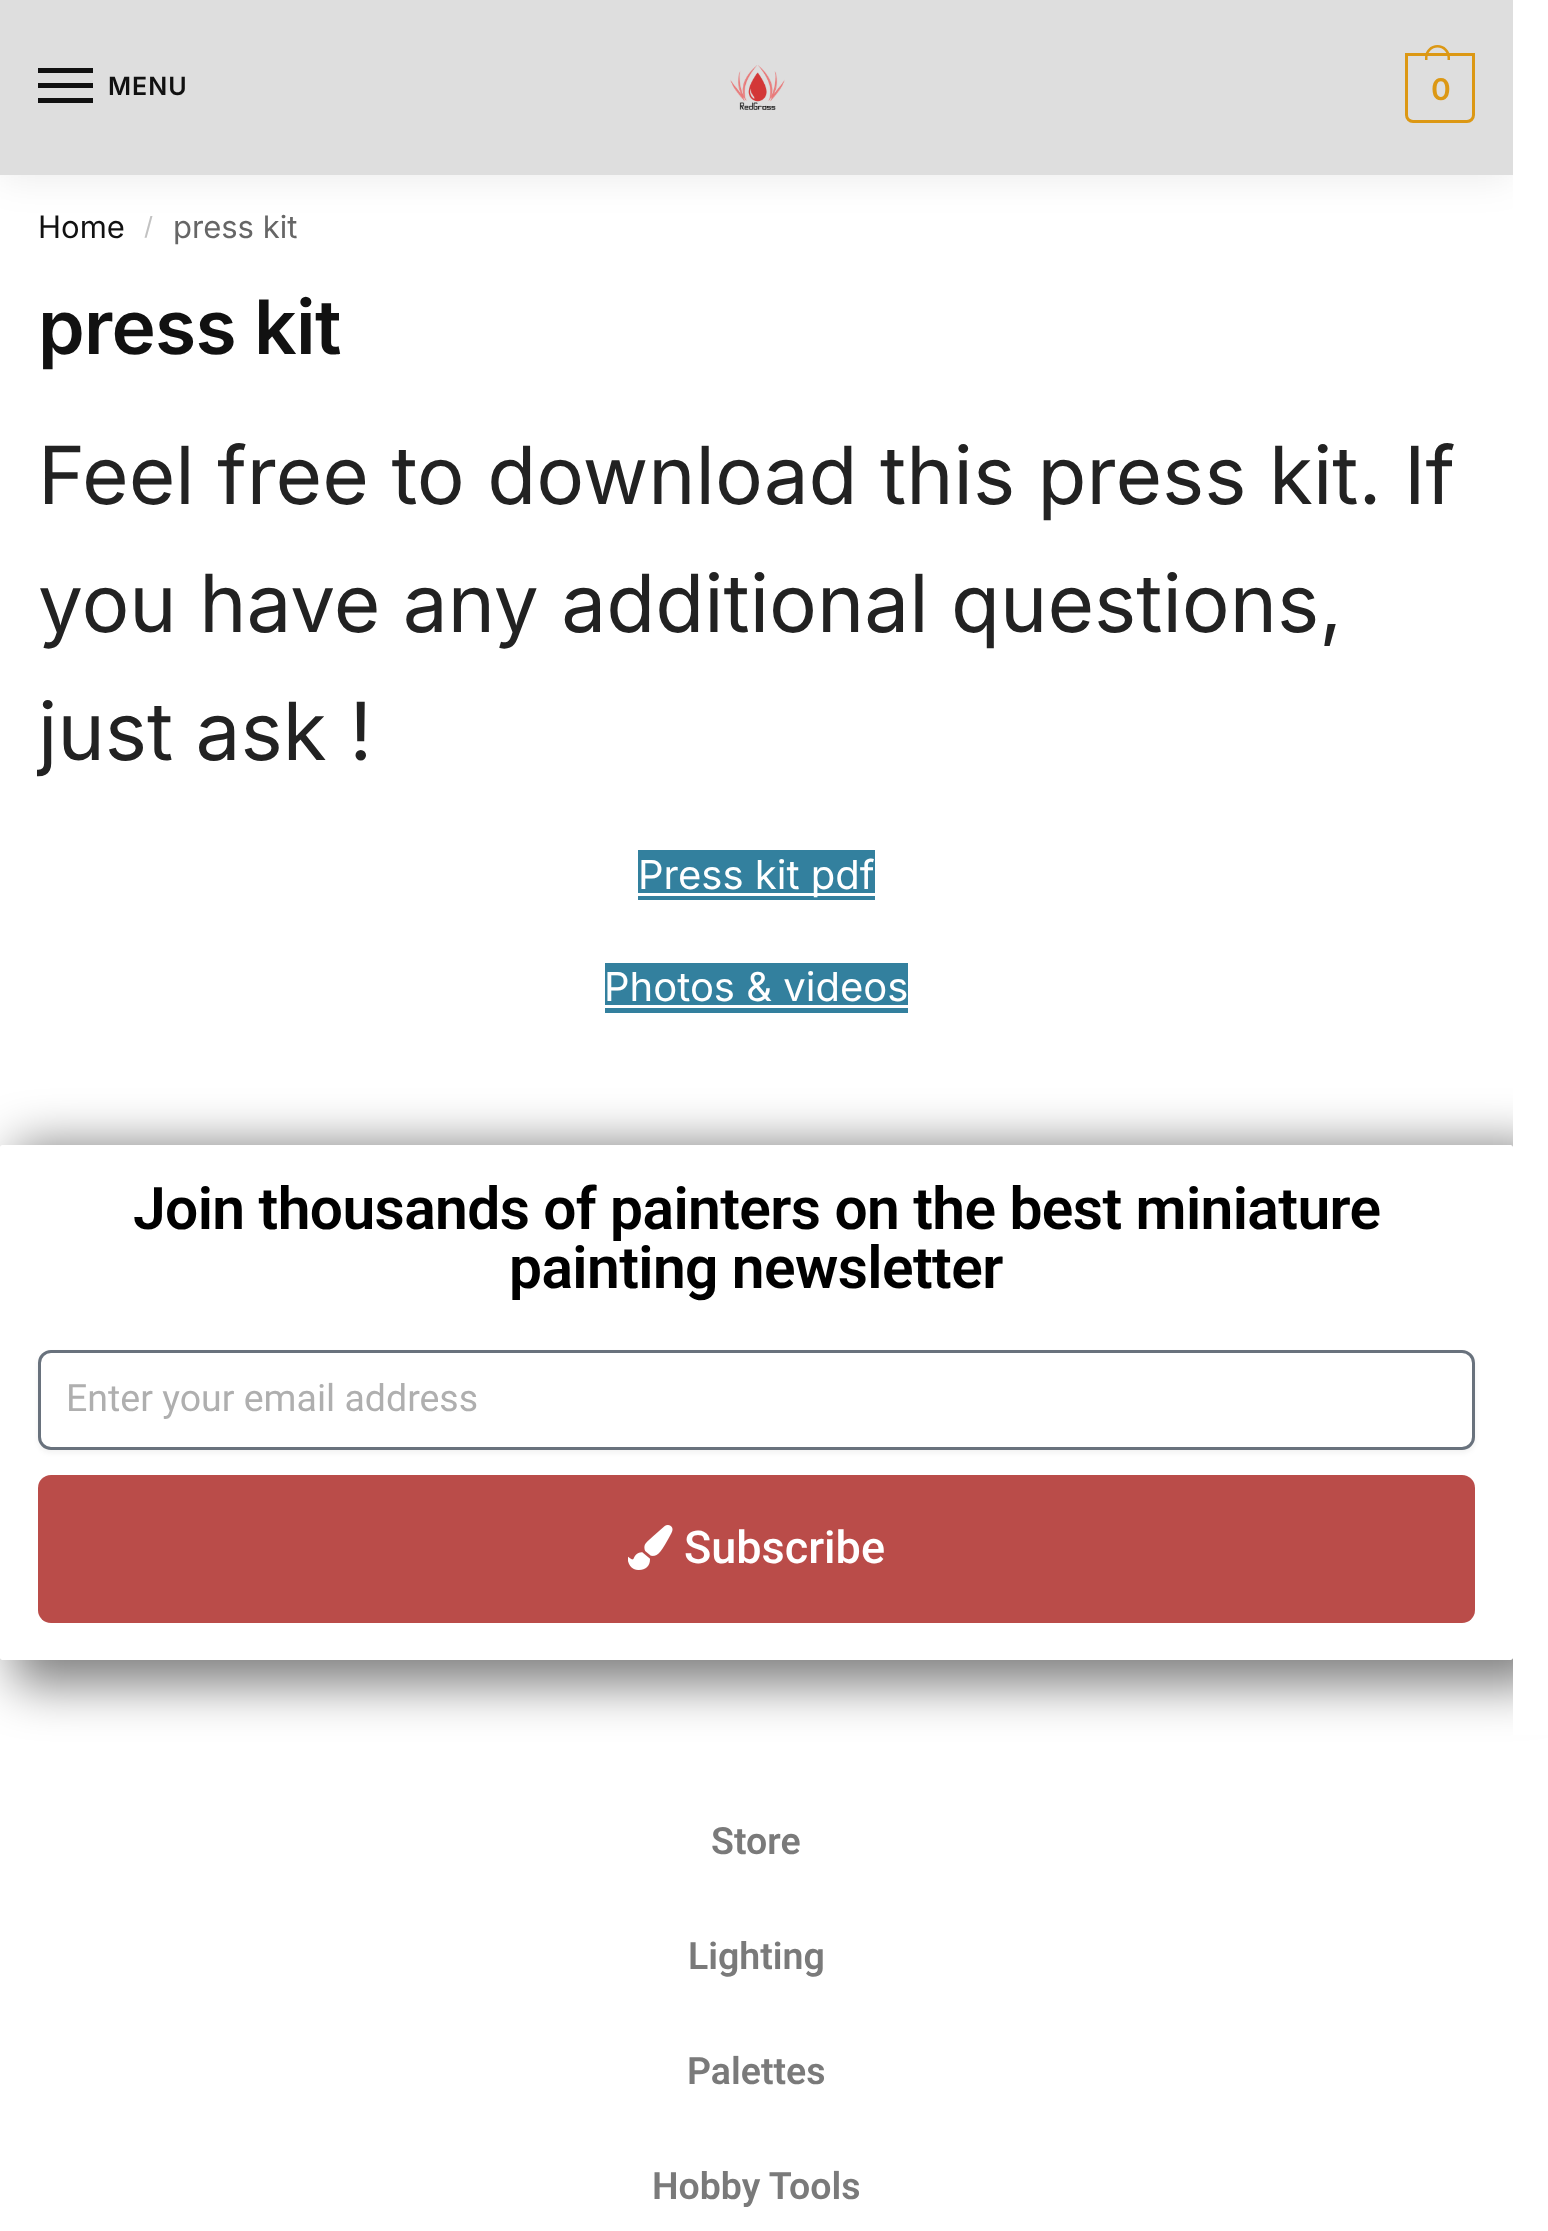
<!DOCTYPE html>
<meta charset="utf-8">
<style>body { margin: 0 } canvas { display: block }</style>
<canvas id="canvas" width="1548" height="2231"></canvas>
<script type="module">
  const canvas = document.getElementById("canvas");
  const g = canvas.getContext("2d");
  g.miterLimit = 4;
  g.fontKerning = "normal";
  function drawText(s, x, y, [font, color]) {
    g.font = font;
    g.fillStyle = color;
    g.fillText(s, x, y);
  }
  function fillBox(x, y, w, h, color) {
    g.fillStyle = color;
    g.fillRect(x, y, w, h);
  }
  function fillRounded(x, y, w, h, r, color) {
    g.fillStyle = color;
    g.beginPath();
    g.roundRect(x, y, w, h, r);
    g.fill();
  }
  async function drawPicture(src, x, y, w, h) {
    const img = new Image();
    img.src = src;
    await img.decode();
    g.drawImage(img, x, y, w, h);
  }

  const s1 = ["600 25px Inter", "#111111"];
  const s2 = ["600 30px Inter", "#DC9814"];
  const s3 = ["31px Inter", "#111111"];
  const s4 = ["25px Inter", "#C2C2C2"];
  const s5 = ["31px Inter", "#666666"];
  const s6 = ["600 75px Inter", "#111111"];
  const s7 = ["80px Inter", "#222222"];
  const s8 = ["40px Inter", "#FFFFFF"];
  const s9 = ["600 58.7px Roboto", "#000000"];
  const s10 = ["37.5px Roboto", "#AFAFAF"];
  const s11 = ["500 45px Roboto", "#FFFFFF"];
  const s12 = ["600 37.5px Roboto", "#7A7A7A"];

  fillBox(0, 0, 1548, 2231, "#FFFFFF");
  fillBox(0, 0, 1513, 175, "#DEDEDE");
  g.save();
  g.beginPath();
  g.moveTo(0, 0);
  g.lineTo(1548, 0);
  g.lineTo(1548, 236);
  g.lineTo(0, 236);
  g.closePath();
  g.moveTo(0, 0);
  g.lineTo(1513, 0);
  g.lineTo(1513, 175);
  g.lineTo(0, 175);
  g.closePath();
  g.clip("evenodd");
  g.fillStyle = "rgba(0, 0, 0, 0.08)";
  g.filter = "blur(19px)";
  g.beginPath();
  g.rect(0, 3, 1513, 175);
  g.fill();
  g.filter = "none";
  g.restore();
  fillBox(38, 68, 55, 5, "#111111");
  fillBox(38, 83, 55, 5, "#111111");
  g.letterSpacing = "1px";
  drawText("MENU", 108, 95, s1);
  fillBox(38, 98, 55, 5, "#111111");
  await drawPicture("pic1.png", 730, 65, 55, 45);
  g.beginPath();
  g.roundRect(1406.5, 54.5, 67, 67, [0, 0, 6.5, 6.5]);
  g.strokeStyle = "#DC9814";
  g.lineWidth = 3;
  g.stroke();
  g.fillStyle = "#DC9814";
  g.beginPath();
  g.moveTo(1437.5, 45);
  g.bezierCurveTo(1444.5, 45, 1450, 50.5, 1450, 57.5);
  g.lineTo(1450, 60);
  g.lineTo(1425, 60);
  g.lineTo(1425, 57.5);
  g.bezierCurveTo(1425, 50.5, 1430.5, 45, 1437.5, 45);
  g.closePath();
  g.moveTo(1437.5, 47.5);
  g.bezierCurveTo(1443, 47.5, 1447.5, 52, 1447.5, 57.5);
  g.lineTo(1447.5, 60);
  g.lineTo(1427.5, 60);
  g.lineTo(1427.5, 57.5);
  g.bezierCurveTo(1427.5, 52, 1432, 47.5, 1437.5, 47.5);
  g.closePath();
  g.fill("evenodd");
  g.letterSpacing = "-2px";
  drawText("0", 1431, 100, s2);
  g.save();
  g.beginPath();
  g.moveTo(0, 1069);
  g.lineTo(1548, 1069);
  g.lineTo(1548, 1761);
  g.lineTo(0, 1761);
  g.closePath();
  g.moveTo(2.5, 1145);
  g.lineTo(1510.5, 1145);
  g.bezierCurveTo(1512, 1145, 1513, 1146, 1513, 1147.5);
  g.lineTo(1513, 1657.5);
  g.bezierCurveTo(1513, 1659, 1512, 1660, 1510.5, 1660);
  g.lineTo(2.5, 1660);
  g.bezierCurveTo(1, 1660, 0, 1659, 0, 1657.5);
  g.lineTo(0, 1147.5);
  g.bezierCurveTo(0, 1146, 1, 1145, 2.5, 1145);
  g.closePath();
  g.clip("evenodd");
  g.fillStyle = "rgba(0, 0, 0, 0.5)";
  g.filter = "blur(25px)";
  g.beginPath();
  g.roundRect(13, 1145, 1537, 540, 15);
  g.fill();
  g.filter = "none";
  g.restore();
  fillBox(1513, 0, 35, 1735, "#FFFFFF");
  g.letterSpacing = "0px";
  drawText("Home", 38, 238, s3);
  drawText("/", 144, 235, s4);
  drawText("press kit", 173, 238, s5);
  g.letterSpacing = "-0.75px";
  drawText("press kit", 38, 354, s6);
  g.letterSpacing = "0px";
  drawText("Feel free to download this press kit. If", 38, 504, s7);
  drawText("you have any additional questions,", 38, 632, s7);
  drawText("just ask !", 38, 760, s7);
  fillBox(638, 850, 237, 50, "#33809E");
  fillBox(638, 893, 237, 3, "#FFFFFF");
  drawText("Press kit pdf", 638, 889, s8);
  fillBox(605, 963, 303, 50, "#33809E");
  drawText("Photos & videos", 604, 1001, s8);
  fillBox(605, 1005, 303, 3, "#FFFFFF");
  g.letterSpacing = "-0.6px";
  drawText("Join thousands of painters on the best miniature", 133, 1229, s9);
  drawText("painting newsletter", 509, 1288, s9);
  g.save();
  g.beginPath();
  g.moveTo(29, 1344);
  g.lineTo(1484, 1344);
  g.lineTo(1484, 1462);
  g.lineTo(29, 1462);
  g.closePath();
  g.moveTo(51, 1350);
  g.lineTo(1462, 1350);
  g.bezierCurveTo(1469, 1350, 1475, 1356, 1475, 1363);
  g.lineTo(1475, 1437);
  g.bezierCurveTo(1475, 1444, 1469, 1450, 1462, 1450);
  g.lineTo(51, 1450);
  g.bezierCurveTo(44, 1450, 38, 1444, 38, 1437);
  g.lineTo(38, 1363);
  g.bezierCurveTo(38, 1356, 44, 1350, 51, 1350);
  g.closePath();
  g.clip("evenodd");
  g.fillStyle = "rgba(0, 0, 0, 0.05)";
  g.filter = "blur(2.5px)";
  g.beginPath();
  g.roundRect(38, 1353, 1437, 100, 13);
  g.fill();
  g.filter = "none";
  g.restore();
  g.beginPath();
  g.roundRect(39.5, 1351.5, 1434, 97, 11.5);
  g.strokeStyle = "#69727D";
  g.stroke();
  g.letterSpacing = "0px";
  drawText("Enter your email address", 66, 1411, s10);
  fillRounded(38, 1475, 1437, 148, 13, "#BA4C49");
  await drawPicture("pic2.png", 628, 1525, 45, 45);
  drawText("Subscribe", 684, 1563, s11);
  drawText("Store", 711, 1854, s12);
  drawText("Lighting", 688, 1969, s12);
  drawText("Palettes", 687, 2084, s12);
  drawText("Hobby Tools", 652, 2199, s12);
</script>
